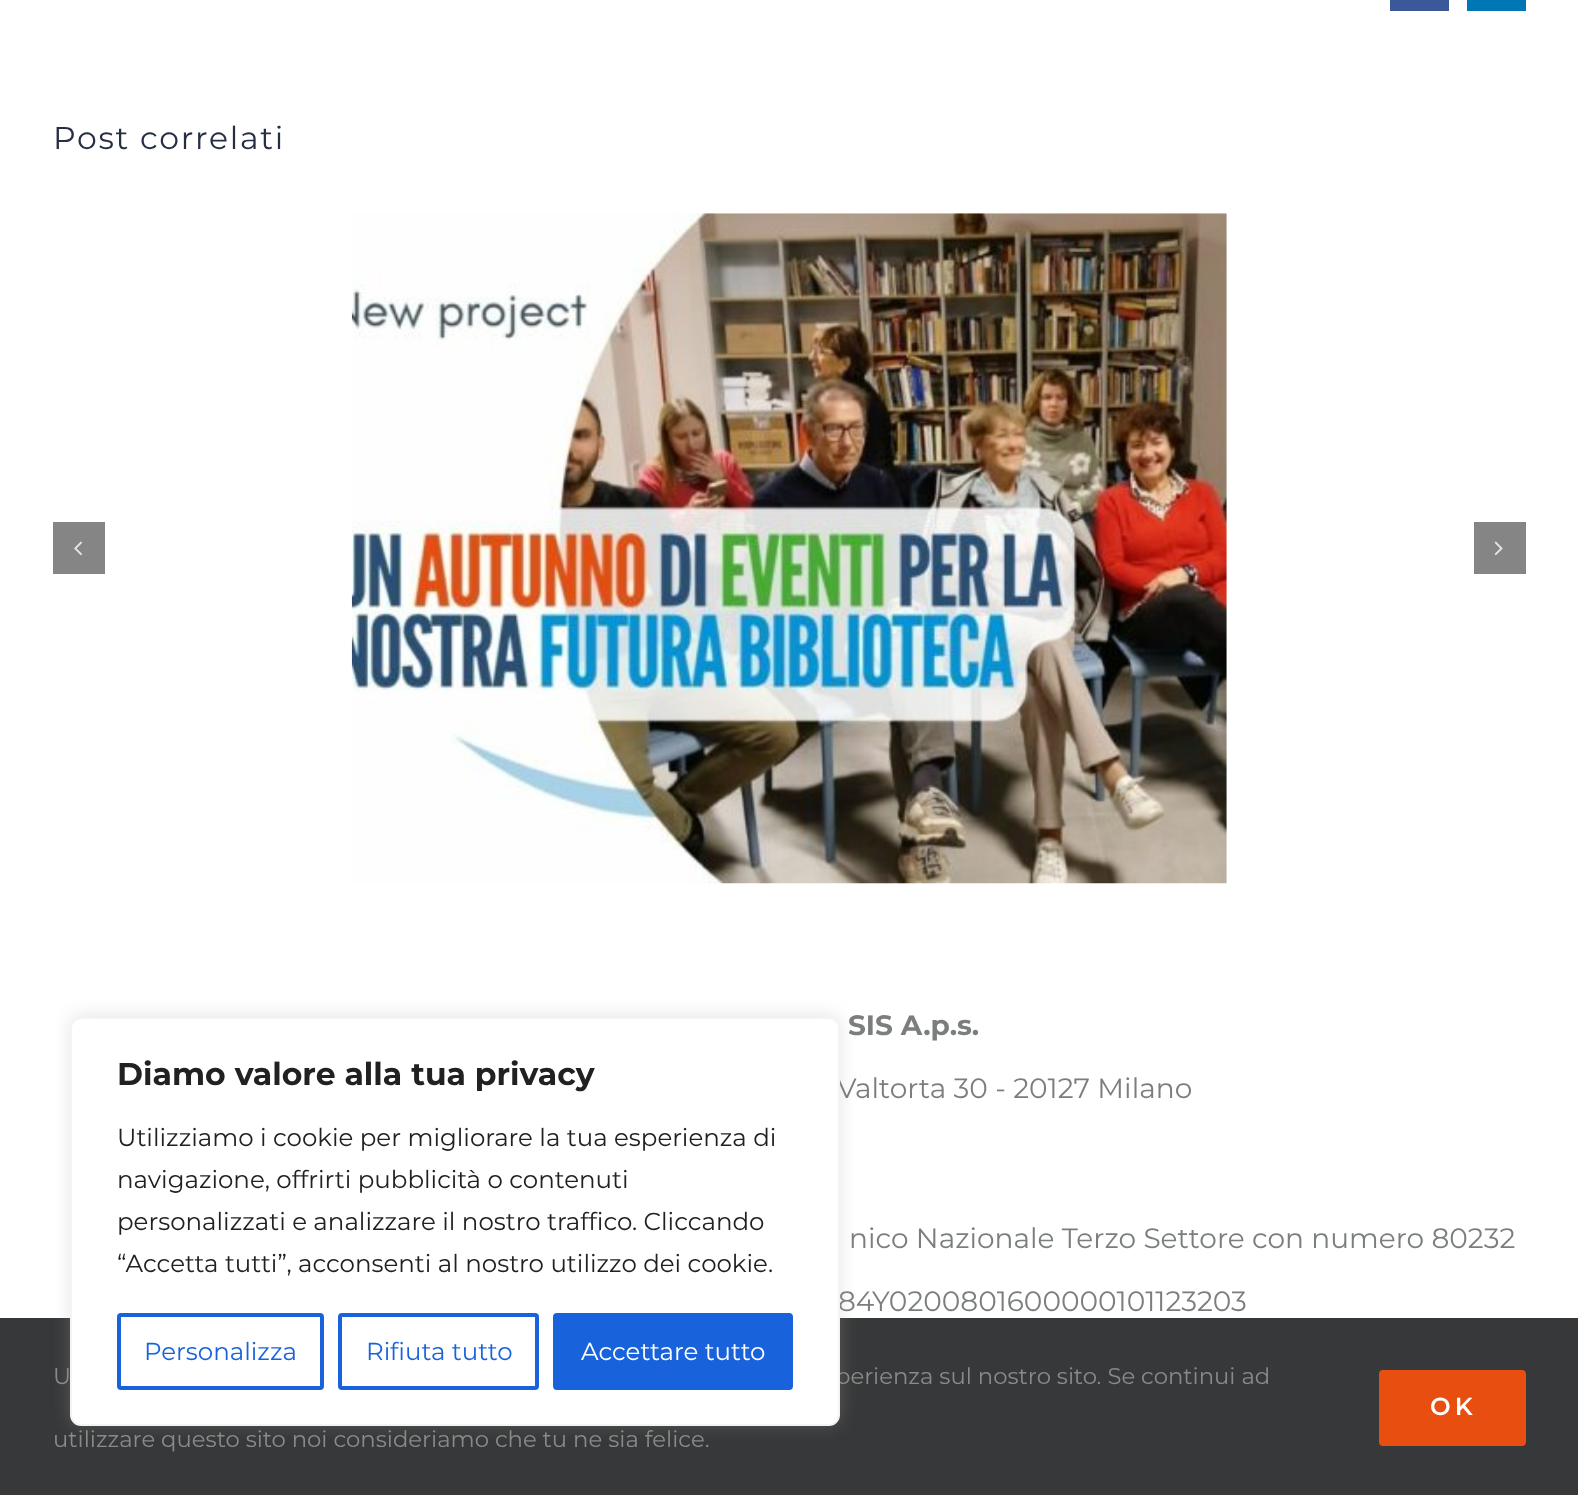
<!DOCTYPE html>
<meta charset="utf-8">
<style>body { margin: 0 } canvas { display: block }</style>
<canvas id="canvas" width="1578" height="1495"></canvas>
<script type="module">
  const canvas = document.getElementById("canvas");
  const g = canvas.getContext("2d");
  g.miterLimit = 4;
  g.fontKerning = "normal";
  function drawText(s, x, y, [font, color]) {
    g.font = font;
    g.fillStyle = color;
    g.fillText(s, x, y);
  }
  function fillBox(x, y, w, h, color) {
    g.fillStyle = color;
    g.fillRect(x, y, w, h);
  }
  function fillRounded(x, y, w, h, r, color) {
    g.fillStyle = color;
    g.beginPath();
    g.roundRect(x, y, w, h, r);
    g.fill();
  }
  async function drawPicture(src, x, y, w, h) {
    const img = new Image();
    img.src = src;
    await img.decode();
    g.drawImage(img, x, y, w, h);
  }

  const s1 = ["31.5px Montserrat", "#262E44"];
  const s2 = ["bold 28px Montserrat", "#7B7F7C"];
  const s3 = ["28px Montserrat", "#7B7F7C"];
  const s4 = ["22.75px Montserrat", "#8C8989"];
  const s5 = ["bold 31.5px Montserrat", "#212121"];
  const s6 = ["24.5px Montserrat", "#212121"];
  const s7 = ["24.5px Montserrat", "#1863DC"];
  const s8 = ["24.5px Montserrat", "#FFFFFF"];
  const s9 = ["600 24.5px Montserrat", "#FFFFFF"];

  fillBox(0, 0, 1578, 1495, "#FFFFFF");
  fillBox(1390, 0, 59, 11, "#3B5998");
  fillBox(1467, 0, 59, 11, "#0077B5");
  g.letterSpacing = "1.75px";
  drawText("Post correlati", 53, 149, s1);
  await drawPicture("pic1.png", 351, 213, 876, 671);
  fillBox(53, 522, 52, 52, "#858585");
  await drawPicture("pic2.png", 74, 541, 8, 15);
  fillBox(1474, 522, 52, 52, "#858585");
  await drawPicture("pic3.png", 1494, 541, 9, 15);
  g.letterSpacing = "0px";
  drawText("SIS A.p.s.", 848, 1035, s2);
  drawText("Valtorta 30 - 20127 Milano", 837, 1098, s3);
  drawText("nico Nazionale Terzo Settore con numero 80232", 849, 1248, s3);
  drawText("84Y0200801600000101123203", 838, 1311, s3);
  fillBox(0, 1318, 1578, 177, "#363839");
  g.fillStyle = "rgba(172, 171, 171, 0.3)";
  g.filter = "blur(9px)";
  g.beginPath();
  g.roundRect(70, 1015, 770, 410, 11);
  g.fill();
  g.filter = "none";
  drawText("perienza sul nostro sito. Se continui ad", 835, 1384, s4);
  g.fillStyle = "#FFFFFF";
  g.beginPath();
  g.roundRect(71, 1018, 768, 407, 10);
  g.fill();
  g.strokeStyle = "#F4F4F4";
  g.lineWidth = 2;
  g.stroke();
  drawText("Diamo valore alla tua privacy", 117, 1085, s5);
  drawText("Utilizziamo i cookie per migliorare la tua esperienza di", 117, 1146, s6);
  drawText("navigazione, offrirti pubblicità o contenuti", 117, 1188, s6);
  drawText("personalizzati e analizzare il nostro traffico. Cliccando", 117, 1230, s6);
  drawText("“Accetta tutti”, acconsenti al nostro utilizzo dei cookie.", 117, 1272, s6);
  g.beginPath();
  g.roundRect(119, 1315, 203, 73, 2);
  g.strokeStyle = "#1863DC";
  g.lineWidth = 4;
  g.stroke();
  drawText("Personalizza", 144, 1360, s7);
  g.beginPath();
  g.roundRect(340, 1315, 197, 73, 2);
  g.stroke();
  drawText("Rifiuta tutto", 366, 1360, s7);
  g.beginPath();
  g.roundRect(555, 1315, 236, 73, 2);
  g.fill();
  g.stroke();
  drawText("Accettare tutto", 581, 1360, s8);
  drawText("U", 53, 1384, s4);
  drawText("utilizzare questo sito noi consideriamo che tu ne sia felice.", 53, 1447, s4);
  fillRounded(1379, 1370, 147, 76, 4, "#E74E0F");
  g.letterSpacing = "4px";
  drawText("OK", 1430, 1415, s9);
</script>
